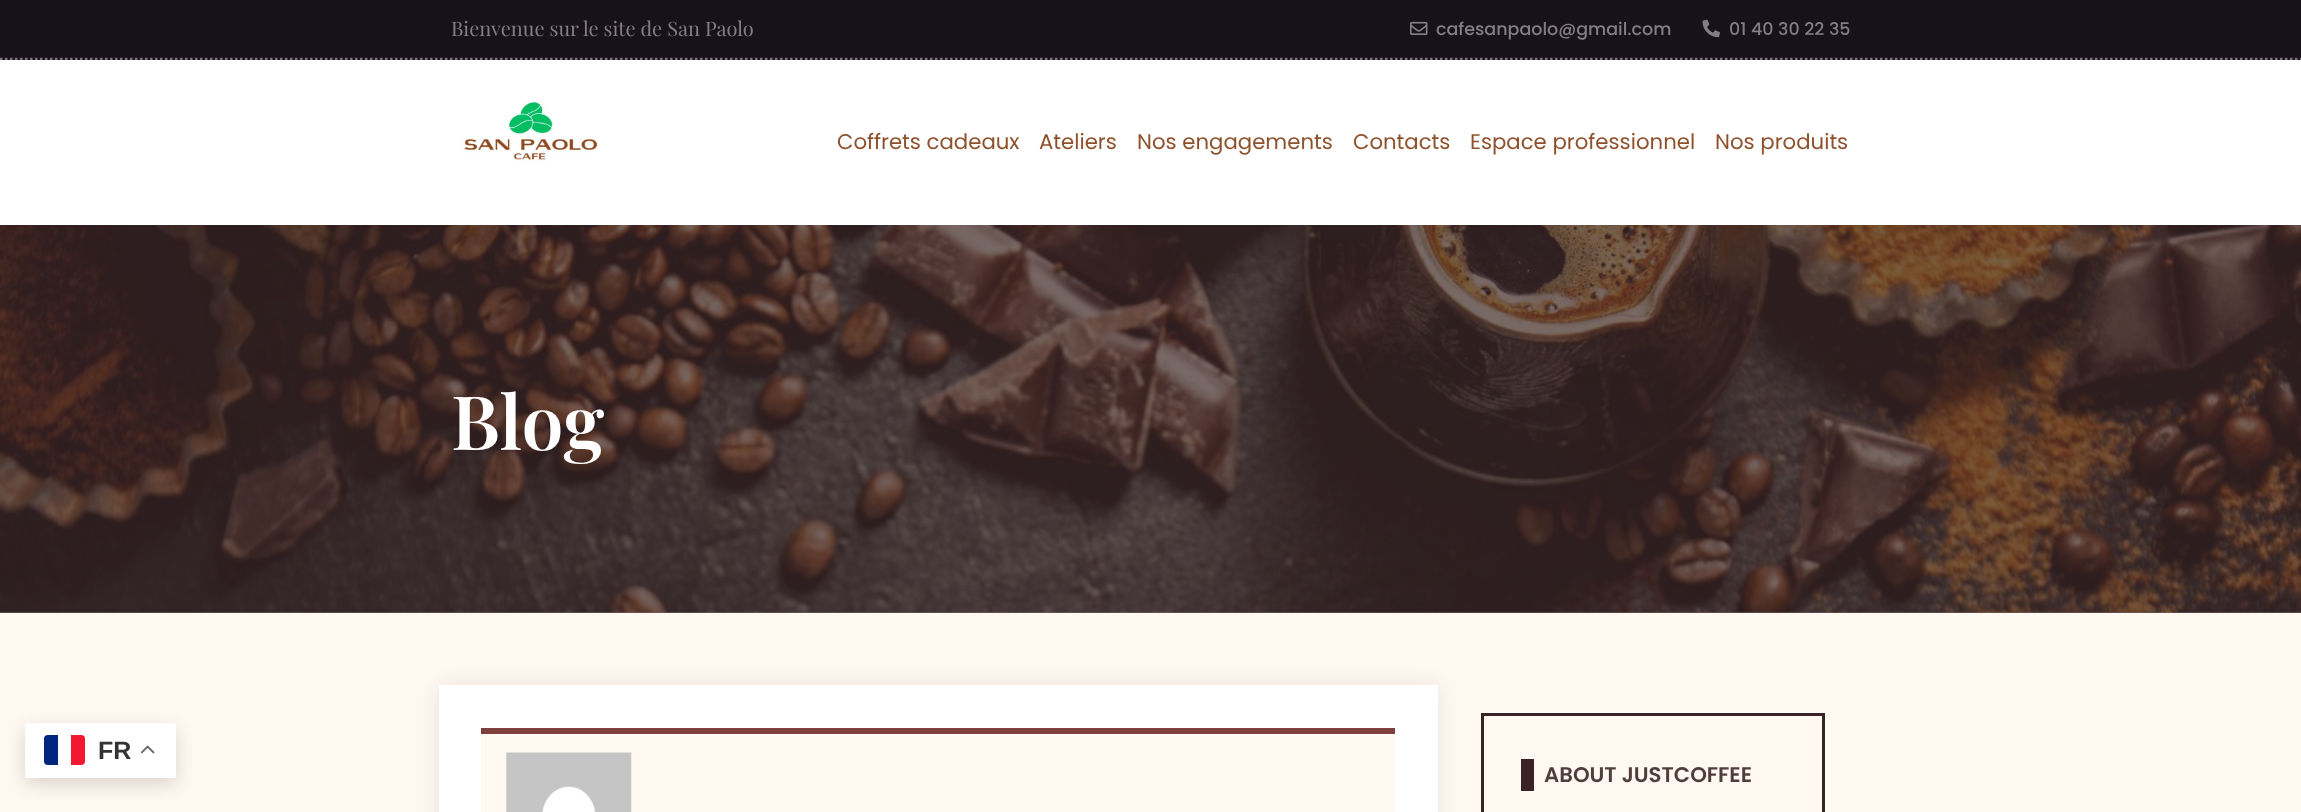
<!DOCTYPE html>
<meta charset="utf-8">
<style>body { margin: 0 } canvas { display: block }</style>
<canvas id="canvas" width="2301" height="812"></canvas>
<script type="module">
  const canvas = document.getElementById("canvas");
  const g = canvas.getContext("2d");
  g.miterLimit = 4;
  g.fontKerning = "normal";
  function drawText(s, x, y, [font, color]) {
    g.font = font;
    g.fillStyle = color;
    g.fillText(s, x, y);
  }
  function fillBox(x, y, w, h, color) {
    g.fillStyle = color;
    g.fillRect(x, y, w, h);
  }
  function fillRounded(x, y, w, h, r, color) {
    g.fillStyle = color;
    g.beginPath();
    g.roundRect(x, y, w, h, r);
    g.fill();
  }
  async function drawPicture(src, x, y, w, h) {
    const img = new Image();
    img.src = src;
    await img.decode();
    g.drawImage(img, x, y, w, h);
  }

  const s1 = ["bold 25px Liberation Sans", "#333333"];
  const s2 = ["20px Playfair Display", "#837D87"];
  const s3 = ["500 17.5px Poppins", "#837D87"];
  const s4 = ["21.25px Poppins", "#8F512C"];
  const s5 = ["600 75px Playfair Display", "#FFFFFF"];
  const s6 = ["600 21.25px Poppins", "#503E3E"];

  fillBox(0, 0, 2301, 812, "#79696B");
  fillBox(0, 613, 2301, 199, "#FFF9F1");
  g.fillStyle = "rgba(0, 0, 0, 0.15)";
  g.filter = "blur(9.5px)";
  g.beginPath();
  g.roundRect(25, 729, 151, 55, 2.5);
  g.fill();
  g.filter = "none";
  fillRounded(25, 723, 151, 55, 2.5, "#FFFFFF");
  g.fillStyle = "#00267F";
  g.beginPath();
  g.roundRect(44, 735, 14, 30, [4, 0, 0, 4]);
  g.fill();
  g.fillStyle = "#F31830";
  g.beginPath();
  g.roundRect(71, 735, 14, 30, [0, 4, 4, 0]);
  g.fill();
  drawText("FR", 98, 759, s1);
  await drawPicture("pic1.png", 141, 745, 14, 9);
  fillBox(0, 0, 2301, 60, "#17111B");
  g.beginPath();
  g.moveTo(0, 59);
  g.lineTo(2301, 59);
  g.strokeStyle = "#7A7A7A";
  g.lineWidth = 2.5;
  g.setLineDash([2.5, 2.5]);
  g.stroke();
  drawText("Bienvenue sur le site de San Paolo", 451, 36, s2);
  await drawPicture("pic2.png", 1410, 21, 18, 14);
  drawText("cafesanpaolo@gmail.com", 1436, 35, s3);
  await drawPicture("pic3.png", 1702, 19, 18, 19);
  drawText("01 40 30 22 35", 1729, 35, s3);
  fillBox(0, 60, 2301, 165, "#FFFFFF");
  await drawPicture("pic4.png", 462, 101, 137, 63);
  drawText("Coffrets cadeaux", 837, 149, s4);
  drawText("Ateliers", 1039, 149, s4);
  drawText("Nos engagements", 1137, 149, s4);
  drawText("Contacts", 1353, 149, s4);
  drawText("Espace professionnel", 1470, 149, s4);
  drawText("Nos produits", 1715, 149, s4);
  await drawPicture("pic5.png", 0, 225, 2301, 388);
  drawText("Blog", 451, 450, s5);
  g.fillStyle = "rgba(0, 0, 0, 0.09)";
  g.filter = "blur(12.5px)";
  g.beginPath();
  g.rect(439, 685, 999, 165);
  g.fill();
  g.filter = "none";
  fillBox(439, 685, 999, 127, "#FFFFFF");
  fillBox(481, 734, 914, 78, "#FFF9F1");
  fillBox(481, 728, 914, 6, "#7D403C");
  await drawPicture("pic6.png", 506, 752, 126, 60);
  g.strokeStyle = "#382426";
  g.lineWidth = 3;
  g.setLineDash([]);
  g.strokeRect(1482.5, 714.5, 341, 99);
  fillBox(1521, 759, 13, 32, "#382426");
  drawText("ABOUT JUSTCOFFEE", 1544, 782, s6);
</script>
